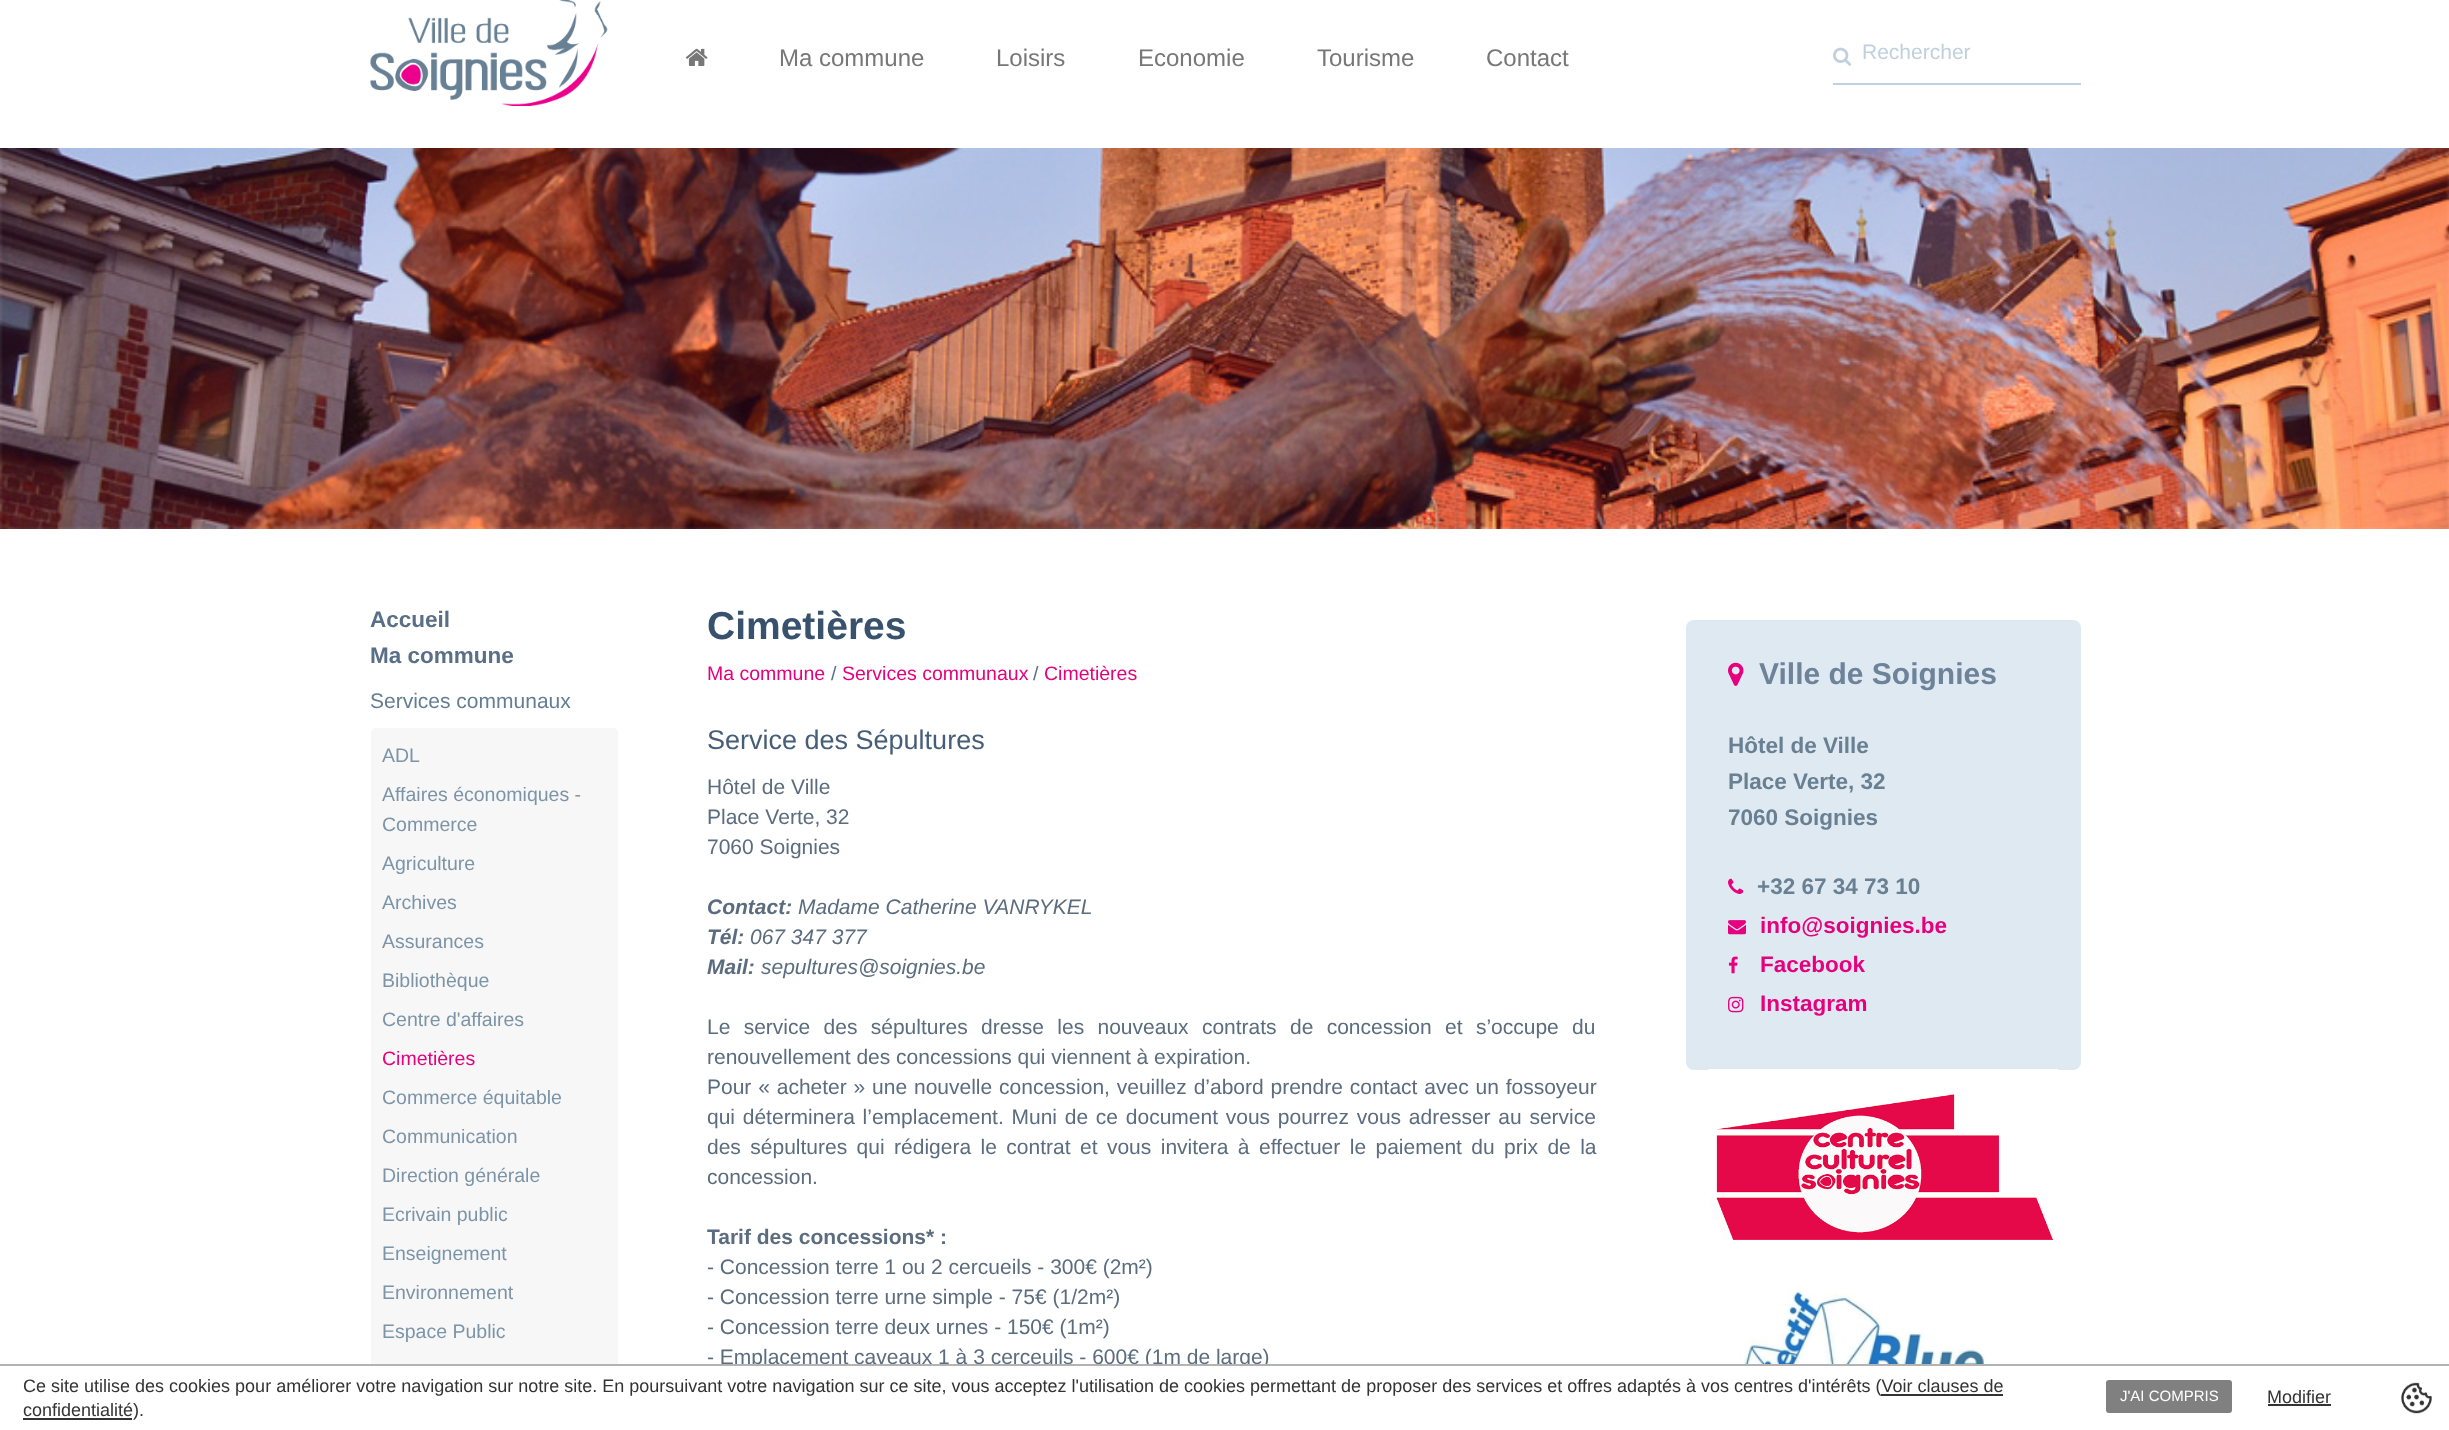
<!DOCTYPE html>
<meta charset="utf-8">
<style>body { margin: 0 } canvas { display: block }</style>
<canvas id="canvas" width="2449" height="1430"></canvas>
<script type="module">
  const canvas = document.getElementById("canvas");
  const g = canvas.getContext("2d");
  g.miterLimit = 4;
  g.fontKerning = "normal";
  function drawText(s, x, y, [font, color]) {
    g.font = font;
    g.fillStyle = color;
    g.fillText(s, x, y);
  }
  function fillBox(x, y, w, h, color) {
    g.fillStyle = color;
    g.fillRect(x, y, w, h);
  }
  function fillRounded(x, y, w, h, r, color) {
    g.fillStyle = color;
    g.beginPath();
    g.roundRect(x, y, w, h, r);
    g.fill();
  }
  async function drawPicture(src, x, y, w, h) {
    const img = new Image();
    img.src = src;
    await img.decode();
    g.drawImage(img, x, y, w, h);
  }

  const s1 = ["24px Liberation Sans", "#777777"];
  const s2 = ["21px Liberation Sans", "#C0D0DF"];
  const s3 = ["bold 22.5px Liberation Sans", "#586F86"];
  const s4 = ["21px Liberation Sans", "#637D93"];
  const s5 = ["19.5px Liberation Sans", "#7C94A8"];
  const s6 = ["19.5px Liberation Sans", "#E6007E"];
  const s7 = ["bold 39px Liberation Sans", "#38526E"];
  const s8 = ["19.5px Liberation Sans", "#586F86"];
  const s9 = ["27px Liberation Sans", "#465E77"];
  const s10 = ["21px Liberation Sans", "#5B6C7E"];
  const s11 = ["italic bold 21px Liberation Sans", "#5B6C7E"];
  const s12 = ["italic 21px Liberation Sans", "#5B6C7E"];
  const s13 = ["bold 21px Liberation Sans", "#5B6C7E"];
  const s14 = ["bold 30px Liberation Sans", "#6D8399"];
  const s15 = ["bold 22.5px Liberation Sans", "#698093"];
  const s16 = ["bold 22.5px Liberation Sans", "#E6007E"];
  const s17 = ["18px Liberation Sans", "#333333"];
  const s18 = ["15px Liberation Sans", "#FFFFFF"];

  fillBox(0, 0, 2449, 1430, "#FFFFFF");
  await drawPicture("pic1.png", 370, 0, 238, 106);
  await drawPicture("pic2.png", 685, 48, 23, 18);
  drawText("Ma commune", 779, 66, s1);
  drawText("Loisirs", 996, 66, s1);
  drawText("Economie", 1138, 66, s1);
  drawText("Tourisme", 1317, 66, s1);
  drawText("Contact", 1486, 66, s1);
  fillBox(1833, 83, 248, 2, "#C0D0E0");
  await drawPicture("pic3.png", 1833, 47, 18, 19);
  drawText("Rechercher", 1862, 59, s2);
  await drawPicture("pic4.png", 0, 148, 2449, 381);
  drawText("Accueil", 370, 627, s3);
  drawText("Ma commune", 370, 663, s3);
  drawText("Services communaux", 370, 708, s4);
  fillRounded(371, 728, 247, 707, 5, "#F7F7F7");
  drawText("ADL", 382, 762, s5);
  drawText("Affaires économiques -", 382, 801, s5);
  drawText("Commerce", 382, 831, s5);
  drawText("Agriculture", 382, 870, s5);
  drawText("Archives", 382, 909, s5);
  drawText("Assurances", 382, 948, s5);
  drawText("Bibliothèque", 382, 987, s5);
  drawText("Centre d'affaires", 382, 1026, s5);
  drawText("Cimetières", 382, 1065, s6);
  drawText("Commerce équitable", 382, 1104, s5);
  drawText("Communication", 382, 1143, s5);
  drawText("Direction générale", 382, 1182, s5);
  drawText("Ecrivain public", 382, 1221, s5);
  drawText("Enseignement", 382, 1260, s5);
  drawText("Environnement", 382, 1299, s5);
  drawText("Espace Public", 382, 1338, s5);
  drawText("Cimetières", 707, 639, s7);
  drawText("Ma commune", 707, 680, s6);
  drawText("/", 831, 680, s8);
  drawText("Services communaux", 842, 680, s6);
  drawText("/", 1033, 680, s8);
  drawText("Cimetières", 1044, 680, s6);
  drawText("Service des Sépultures", 707, 749, s9);
  drawText("Hôtel de Ville", 707, 794, s10);
  drawText("Place Verte, 32", 707, 824, s10);
  drawText("7060 Soignies", 707, 854, s10);
  drawText("Contact:", 707, 914, s11);
  drawText("Madame Catherine VANRYKEL", 798, 914, s12);
  drawText("Tél:", 707, 944, s11);
  drawText("067 347 377", 750, 944, s12);
  drawText("Mail:", 707, 974, s11);
  drawText("sepultures@soignies.be", 761, 974, s12);
  g.wordSpacing = "7.5px";
  drawText("Le service des sépultures dresse les nouveaux contrats de concession et s’occupe du", 707, 1034, s10);
  g.wordSpacing = "0px";
  drawText("renouvellement des concessions qui viennent à expiration.", 707, 1064, s10);
  g.wordSpacing = "1px";
  drawText("Pour « acheter » une nouvelle concession, veuillez d’abord prendre contact avec un fossoyeur", 707, 1094, s10);
  g.wordSpacing = "1.9px";
  drawText("qui déterminera l’emplacement. Muni de ce document vous pourrez vous adresser au service", 707, 1124, s10);
  g.wordSpacing = "3.6px";
  drawText("des sépultures qui rédigera le contrat et vous invitera à effectuer le paiement du prix de la", 707, 1154, s10);
  g.wordSpacing = "0px";
  drawText("concession.", 707, 1184, s10);
  drawText("Tarif des concessions* :", 707, 1244, s13);
  drawText("- Concession terre 1 ou 2 cercueils - 300€ (2m²)", 707, 1274, s10);
  drawText("- Concession terre urne simple - 75€ (1/2m²)", 707, 1304, s10);
  drawText("- Concession terre deux urnes - 150€ (1m²)", 707, 1334, s10);
  drawText("- Emplacement caveaux 1 à 3 cerceuils - 600€ (1m de large)", 707, 1364, s10);
  fillRounded(1686, 620, 395, 450, 8, "#DFE9F2");
  await drawPicture("pic5.png", 1728, 662, 16, 24);
  drawText("Ville de Soignies", 1759, 684, s14);
  drawText("Hôtel de Ville", 1728, 753, s15);
  drawText("Place Verte, 32", 1728, 789, s15);
  drawText("7060 Soignies", 1728, 825, s15);
  await drawPicture("pic6.png", 1728, 878, 16, 16);
  drawText("+32 67 34 73 10", 1757, 894, s15);
  await drawPicture("pic7.png", 1728, 920, 18, 15);
  drawText("info@soignies.be", 1760, 933, s16);
  await drawPicture("pic8.png", 1728, 956, 10, 18);
  drawText("Facebook", 1760, 972, s16);
  await drawPicture("pic9.png", 1728, 996, 16, 17);
  drawText("Instagram", 1760, 1011, s16);
  await drawPicture("pic10.png", 1708, 1069, 350, 171);
  await drawPicture("pic11.png", 1729, 1287, 304, 77);
  fillBox(371, 1366, 896, 64, "#FFFFFF");
  fillBox(0, 1364, 2449, 2, "#B3B3B3");
  drawText("Ce site utilise des cookies pour améliorer votre navigation sur notre site. En poursuivant votre navigation sur ce site, vous acceptez l'utilisation de cookies permettant de proposer des services et offres adaptés à vos centres d'intérêts (Voir clauses de", 23, 1392, s17);
  fillBox(23, 1418, 109, 2, "#333333");
  drawText("confidentialité).", 23, 1416, s17);
  fillBox(1881, 1394, 122, 2, "#333333");
  fillRounded(2106, 1380, 126, 33, 3, "#808080");
  drawText("J'AI COMPRIS", 2120, 1401, s18);
  drawText("Modifier", 2267, 1403, s17);
  fillBox(2268, 1404, 63, 2, "#333333");
  await drawPicture("pic12.png", 2401, 1382, 31, 32);
</script>
